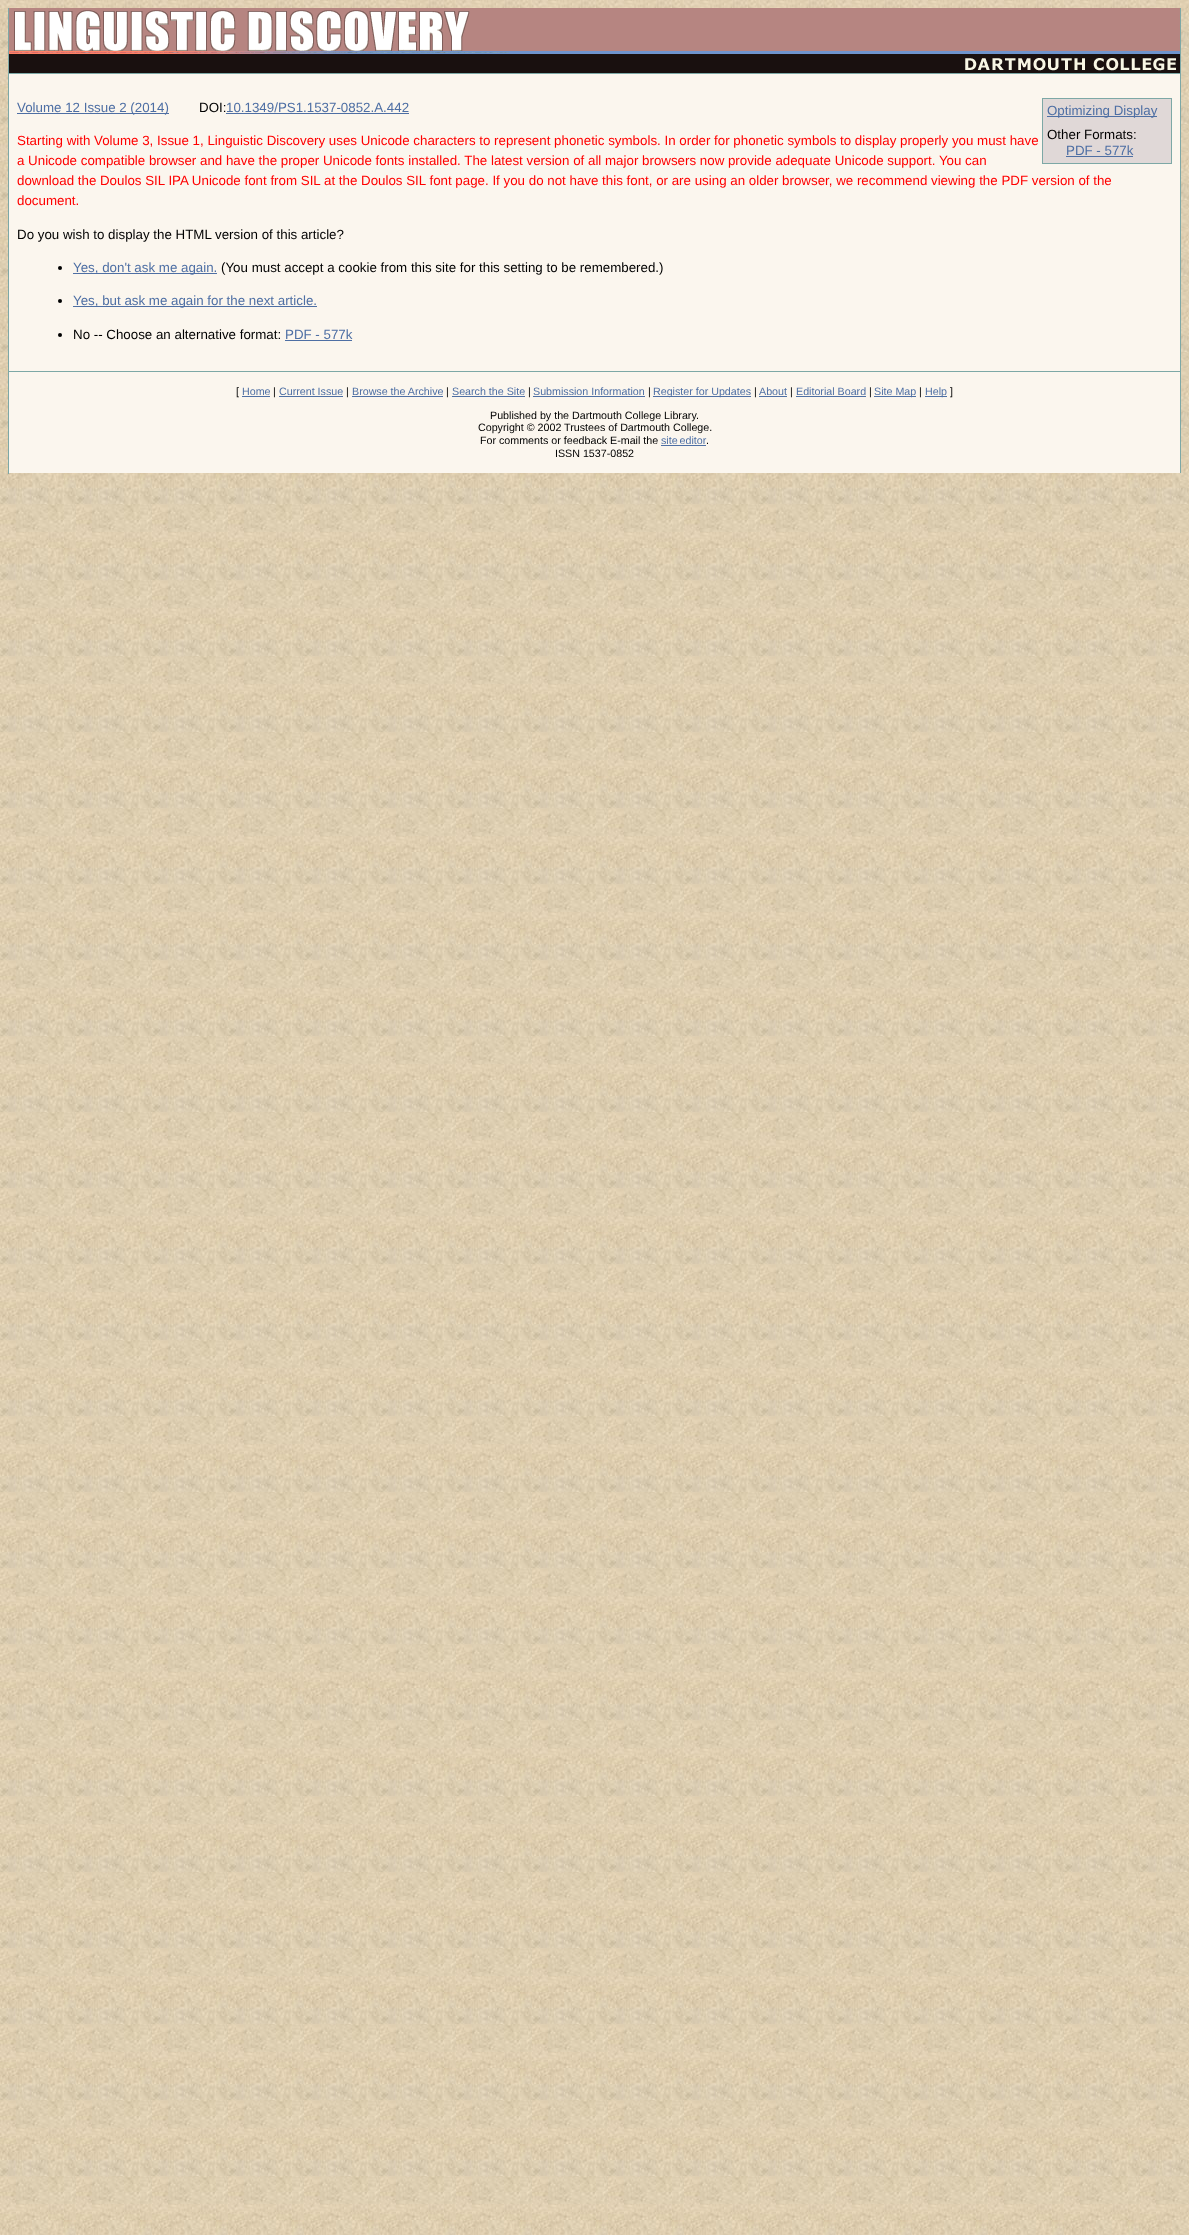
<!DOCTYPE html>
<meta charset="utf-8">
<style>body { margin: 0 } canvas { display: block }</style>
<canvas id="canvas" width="1189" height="2235"></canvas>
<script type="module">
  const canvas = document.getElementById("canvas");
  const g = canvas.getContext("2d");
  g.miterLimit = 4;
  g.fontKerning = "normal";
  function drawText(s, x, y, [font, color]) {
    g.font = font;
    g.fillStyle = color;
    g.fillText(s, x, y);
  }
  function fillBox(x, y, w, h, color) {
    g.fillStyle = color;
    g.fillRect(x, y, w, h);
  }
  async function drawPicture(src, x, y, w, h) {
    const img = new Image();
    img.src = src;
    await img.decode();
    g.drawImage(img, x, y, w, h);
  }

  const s1 = ["13.33px Liberation Sans", "#4E6FA4"];
  const s2 = ["13.33px Liberation Sans", "#000000"];
  const s3 = ["13.33px Liberation Sans", "#FF0000"];
  const s4 = ["10.7px Liberation Sans", "#000000"];
  const s5 = ["10.7px Liberation Sans", "#4E6FA4"];

  fillBox(0, 0, 1189, 2235, "#FFFFFF");
  await drawPicture("pic1.png", 0, 0, 1189, 2235);
  fillBox(8, 8, 1, 466, "#7DA8A6");
  fillBox(9, 8, 1171, 43, "#B68581");
  await drawPicture("pic2.png", 14, 10, 456, 41);
  fillBox(1180, 8, 1, 465, "#7DA8A6");
  fillBox(509, 51, 671, 3, "#6F94CD");
  await drawPicture("pic3.png", 9, 51, 500, 3);
  fillBox(9, 54, 1171, 19, "#19100F");
  await drawPicture("pic4.png", 965, 58, 211, 13);
  fillBox(9, 73, 1171, 1, "#7DA8A6");
  fillBox(9, 74, 1171, 297, "#FBF6EE");
  fillBox(17, 113, 152, 1, "#4E6FA4");
  drawText("Volume 12 Issue 2 (2014)", 17, 112, s1);
  drawText("DOI:", 199, 112, s2);
  drawText("10.1349/PS1.1537-0852.A.442", 226, 112, s1);
  fillBox(226, 113, 183, 1, "#4E6FA4");
  fillBox(1042, 98, 1, 66, "#7DA8A6");
  fillBox(1043, 98, 128, 1, "#7DA8A6");
  fillBox(1171, 98, 1, 66, "#7DA8A6");
  fillBox(1043, 99, 128, 64, "#E0D8D7");
  fillBox(1047, 116, 110, 1, "#4E6FA4");
  drawText("Optimizing Display", 1047, 115, s1);
  drawText("Other Formats:", 1047, 139, s2);
  drawText("PDF - 577k", 1066, 155, s1);
  fillBox(1066, 156, 67, 1, "#4E6FA4");
  fillBox(1043, 163, 128, 1, "#7DA8A6");
  drawText("Starting with Volume 3, Issue 1, Linguistic Discovery uses Unicode characters to represent phonetic symbols. In order for phonetic symbols to display properly you must have", 17, 145, s3);
  drawText("a Unicode compatible browser and have the proper Unicode fonts installed. The latest version of all major browsers now provide adequate Unicode support. You can", 17, 165, s3);
  drawText("download the Doulos SIL IPA Unicode font from SIL at the Doulos SIL font page. If you do not have this font, or are using an older browser, we recommend viewing the PDF version of the", 17, 185, s3);
  drawText("document.", 17, 205, s3);
  drawText("Do you wish to display the HTML version of this article?", 17, 239, s2);
  g.beginPath();
  g.arc(60, 268, 2, 0, Math.PI * 2);
  g.fill();
  fillBox(73, 273, 144, 1, "#4E6FA4");
  drawText("Yes, don't ask me again.", 73, 272, s1);
  drawText("(You must accept a cookie from this site for this setting to be remembered.)", 221, 272, s2);
  g.beginPath();
  g.arc(60, 301, 2, 0, Math.PI * 2);
  g.fill();
  fillBox(73, 306, 244, 1, "#4E6FA4");
  drawText("Yes, but ask me again for the next article.", 73, 305, s1);
  g.fillStyle = "#000000";
  g.beginPath();
  g.arc(60, 335, 2, 0, Math.PI * 2);
  g.fill();
  drawText("No -- Choose an alternative format:", 73, 339, s2);
  drawText("PDF - 577k", 285, 339, s1);
  fillBox(285, 340, 67, 1, "#4E6FA4");
  fillBox(9, 371, 1171, 1, "#7DA8A6");
  fillBox(9, 372, 1171, 101, "#FBF6EE");
  drawText("[", 236, 395, s4);
  drawText("Home", 242, 395, s5);
  fillBox(242, 396, 28, 1, "#4E6FA4");
  drawText("|", 273, 395, s4);
  drawText("Current Issue", 279, 395, s5);
  fillBox(279, 396, 64, 1, "#4E6FA4");
  drawText("|", 346, 395, s4);
  drawText("Browse the Archive", 352, 395, s5);
  fillBox(352, 396, 91, 1, "#4E6FA4");
  drawText("|", 446, 395, s4);
  drawText("Search the Site", 452, 395, s5);
  fillBox(452, 396, 73, 1, "#4E6FA4");
  drawText("|", 528, 395, s4);
  drawText("Submission Information", 533, 395, s5);
  fillBox(533, 396, 112, 1, "#4E6FA4");
  drawText("|", 648, 395, s4);
  fillBox(653, 396, 98, 1, "#4E6FA4");
  drawText("Register for Updates", 653, 395, s5);
  drawText("|", 754, 395, s4);
  drawText("About", 759, 395, s5);
  fillBox(759, 396, 28, 1, "#4E6FA4");
  drawText("|", 790, 395, s4);
  drawText("Editorial Board", 796, 395, s5);
  fillBox(796, 396, 70, 1, "#4E6FA4");
  drawText("|", 869, 395, s4);
  fillBox(874, 396, 42, 1, "#4E6FA4");
  drawText("Site Map", 874, 395, s5);
  drawText("|", 919, 395, s4);
  fillBox(925, 396, 22, 1, "#4E6FA4");
  drawText("Help", 925, 395, s5);
  drawText("]", 950, 395, s4);
  drawText("Published by the Dartmouth College Library.", 490, 419, s4);
  drawText("Copyright © 2002 Trustees of Dartmouth College.", 478, 431, s4);
  drawText("For comments or feedback E-mail the", 480, 444, s4);
  g.wordSpacing = "-1px";
  drawText("site editor", 661, 444, s5);
  fillBox(661, 445, 45, 1, "#4E6FA4");
  g.wordSpacing = "0px";
  drawText(".", 706, 444, s4);
  drawText("ISSN 1537-0852", 555, 457, s4);
</script>
